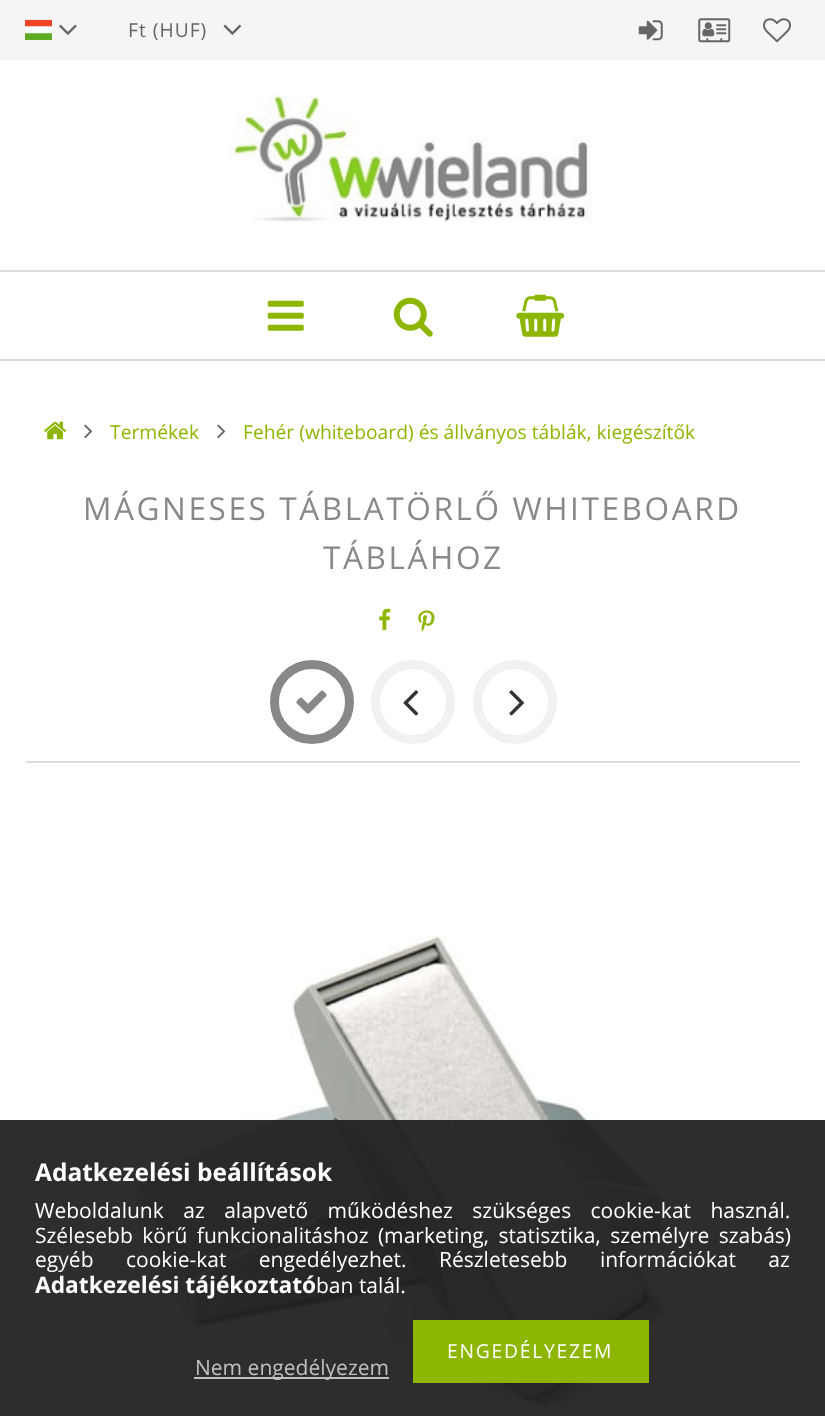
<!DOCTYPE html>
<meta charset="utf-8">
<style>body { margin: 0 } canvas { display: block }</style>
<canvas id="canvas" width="825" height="1416"></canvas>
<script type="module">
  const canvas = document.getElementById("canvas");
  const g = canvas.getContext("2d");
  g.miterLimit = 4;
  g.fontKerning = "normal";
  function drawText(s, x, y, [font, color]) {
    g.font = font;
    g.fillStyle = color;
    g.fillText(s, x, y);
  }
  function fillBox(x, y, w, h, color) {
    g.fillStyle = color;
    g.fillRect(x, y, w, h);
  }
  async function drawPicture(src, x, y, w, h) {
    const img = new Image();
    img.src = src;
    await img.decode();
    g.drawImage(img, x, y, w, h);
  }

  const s1 = ["19.25px Open Sans", "#666666"];
  const s2 = ["19.25px Open Sans", "#8DB600"];
  const s3 = ["31.5px Open Sans", "#888888"];
  const s4 = ["bold 24.5px Open Sans", "#FFFFFF"];
  const s5 = ["21px Open Sans", "#FFFFFF"];
  const s6 = ["bold 22.75px Open Sans", "#FFFFFF"];
  const s7 = ["19.25px Open Sans", "#FFFFFF"];
  const s8 = ["21px Open Sans", "#C0C0C0"];

  fillBox(0, 0, 825, 1416, "#FFFFFF");
  fillBox(0, 0, 825, 60, "#F5F5F5");
  await drawPicture("pic1.png", 25, 19, 27, 21);
  await drawPicture("pic2.png", 59, 24, 18, 11);
  g.letterSpacing = "1px";
  drawText("Ft (HUF)", 128, 37, s1);
  await drawPicture("pic3.png", 223, 24, 19, 11);
  await drawPicture("pic4.png", 638, 20, 25, 21);
  await drawPicture("pic5.png", 698, 18, 33, 25);
  await drawPicture("pic6.png", 763, 18, 28, 25);
  await drawPicture("pic7.png", 227, 95, 366, 127);
  fillBox(0, 270, 825, 2, "#DDDDDD");
  fillBox(0, 359, 825, 2, "#DDDDDD");
  await drawPicture("pic8.png", 267, 300, 37, 31);
  await drawPicture("pic9.png", 393, 297, 40, 40);
  await drawPicture("pic10.png", 516, 294, 49, 43);
  await drawPicture("pic11.png", 44, 421, 23, 19);
  await drawPicture("pic12.png", 84, 424, 9, 15);
  g.letterSpacing = "0px";
  drawText("Termékek", 110, 439, s2);
  await drawPicture("pic12.png", 217, 424, 9, 15);
  drawText("Fehér (whiteboard) és állványos táblák, kiegészítők", 243, 439, s2);
  fillBox(26, 761, 774, 2, "#DDDDDD");
  g.letterSpacing = "2.6px";
  drawText("MÁGNESES TÁBLATÖRLŐ WHITEBOARD", 83, 520, s3);
  drawText("TÁBLÁHOZ", 323, 569, s3);
  await drawPicture("pic13.png", 379, 608, 12, 22);
  await drawPicture("pic14.png", 418, 610, 17, 22);
  g.beginPath();
  g.arc(312, 702, 37.5, 0, Math.PI * 2);
  g.strokeStyle = "#888888";
  g.lineWidth = 9;
  g.stroke();
  await drawPicture("pic15.png", 296, 690, 31, 24);
  g.beginPath();
  g.arc(413, 702, 37.5, 0, Math.PI * 2);
  g.strokeStyle = "#F1F1F1";
  g.stroke();
  await drawPicture("pic16.png", 403, 690, 16, 26);
  g.beginPath();
  g.arc(515, 702, 37.5, 0, Math.PI * 2);
  g.stroke();
  await drawPicture("pic17.png", 509, 690, 15, 26);
  await drawPicture("pic18.png", 132, 935, 538, 478);
  fillBox(0, 1120, 825, 296, "rgba(34, 34, 34, 0.95)");
  g.letterSpacing = "0px";
  drawText("Adatkezelési beállítások", 35, 1181, s4);
  g.wordSpacing = "14px";
  drawText("Weboldalunk az alapvető működéshez szükséges cookie-kat használ.", 35, 1218, s5);
  g.wordSpacing = "4px";
  drawText("Szélesebb körű funkcionalitáshoz (marketing, statisztika, személyre szabás)", 35, 1243, s5);
  g.wordSpacing = "27px";
  drawText("egyéb cookie-kat engedélyezhet. Részletesebb információkat az", 35, 1267, s5);
  g.wordSpacing = "0px";
  drawText("Adatkezelési tájékoztató", 35, 1293, s6);
  drawText("ban talál.", 316, 1293, s5);
  fillBox(413, 1320, 236, 63, "#8DB600");
  g.letterSpacing = "1.75px";
  drawText("ENGEDÉLYEZEM", 447, 1358, s7);
  fillBox(194, 1377, 195, 2, "#C0C0C0");
  g.letterSpacing = "0px";
  drawText("Nem engedélyezem", 195, 1375, s8);
</script>
